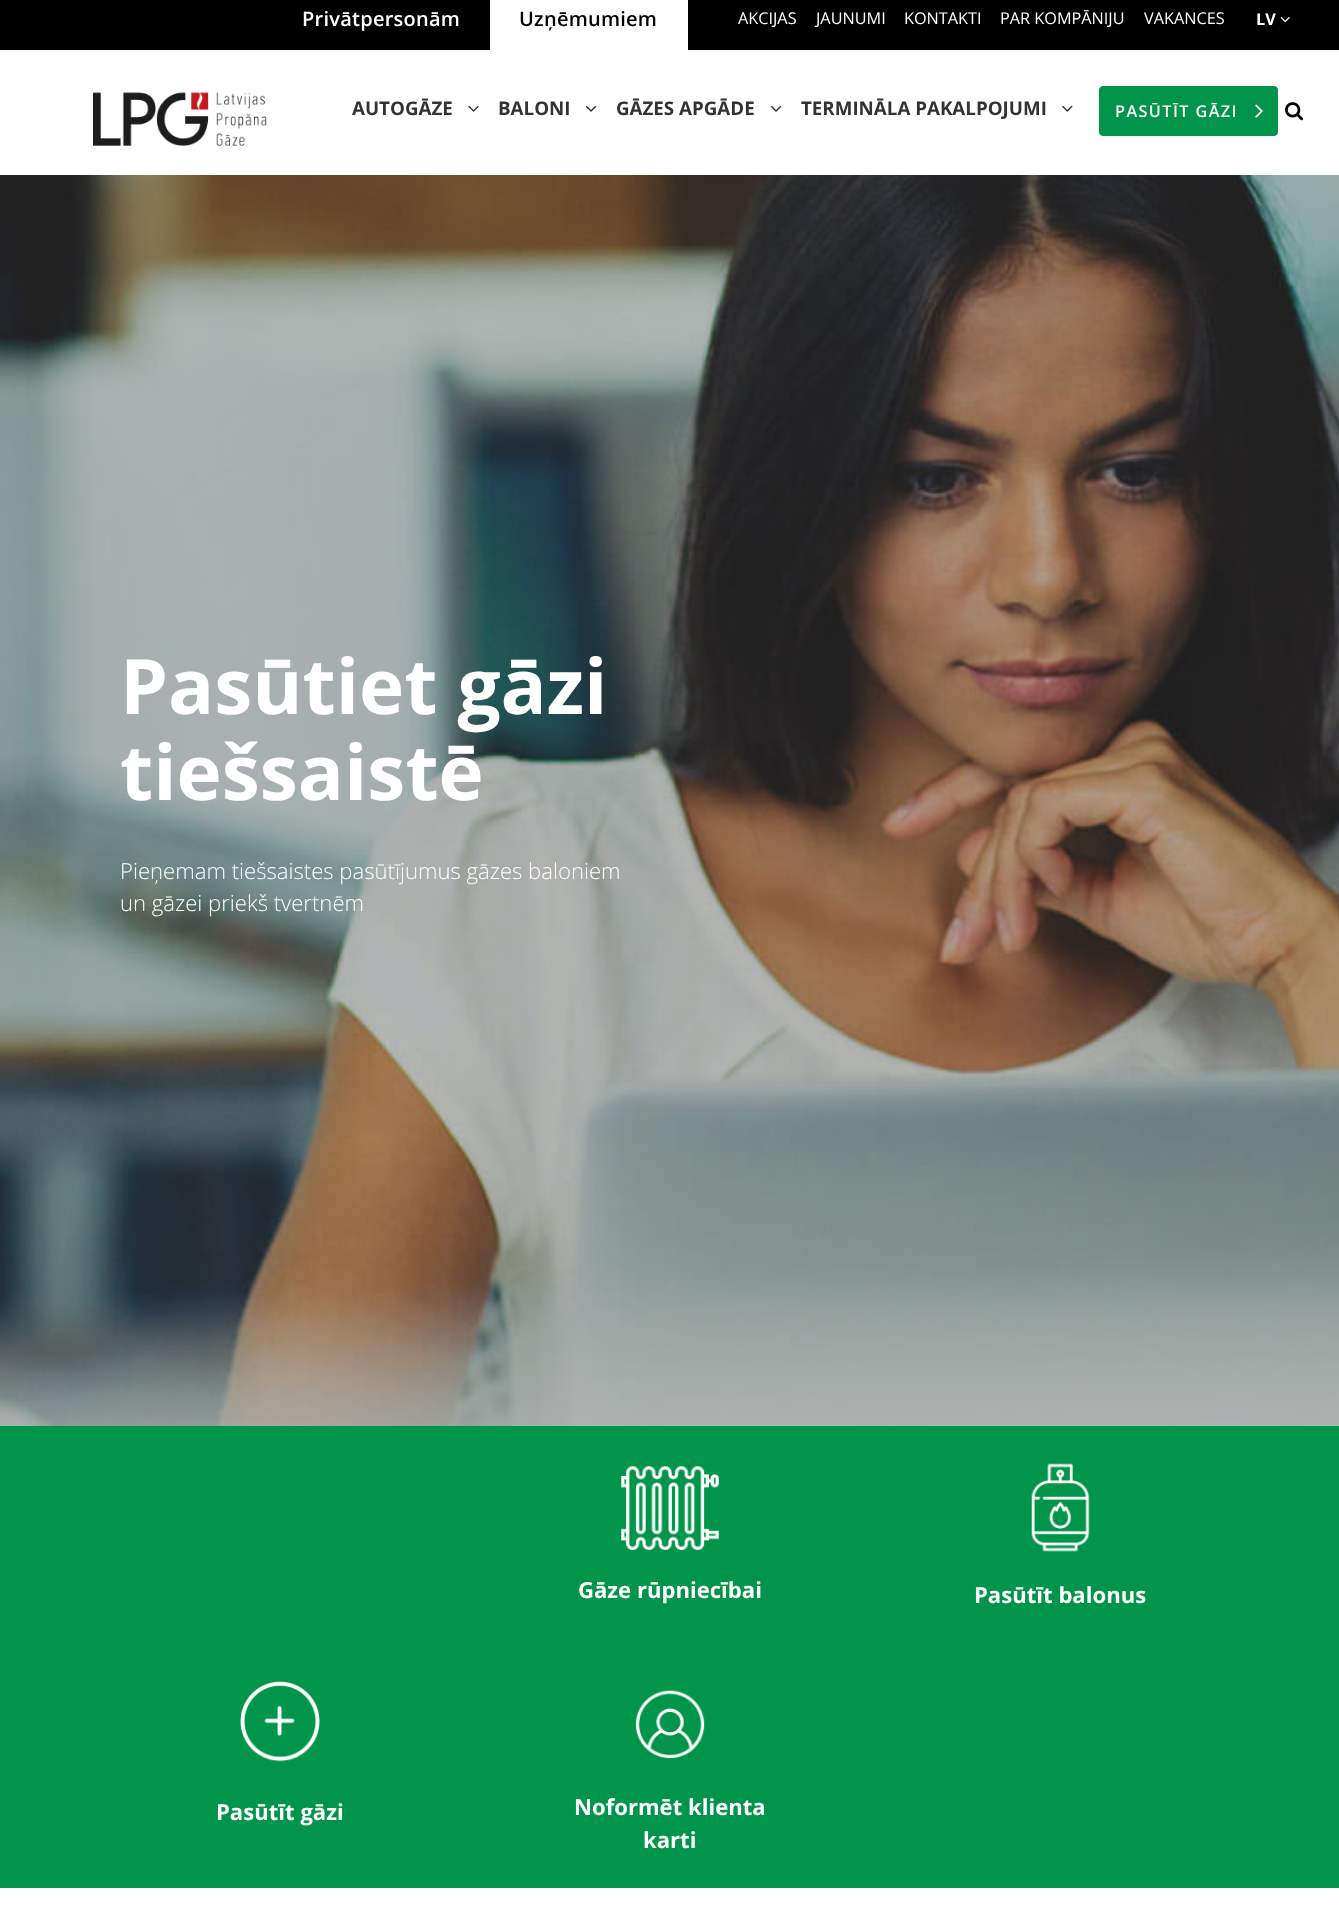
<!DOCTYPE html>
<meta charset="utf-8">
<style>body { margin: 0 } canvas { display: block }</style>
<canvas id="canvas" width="1339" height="1925"></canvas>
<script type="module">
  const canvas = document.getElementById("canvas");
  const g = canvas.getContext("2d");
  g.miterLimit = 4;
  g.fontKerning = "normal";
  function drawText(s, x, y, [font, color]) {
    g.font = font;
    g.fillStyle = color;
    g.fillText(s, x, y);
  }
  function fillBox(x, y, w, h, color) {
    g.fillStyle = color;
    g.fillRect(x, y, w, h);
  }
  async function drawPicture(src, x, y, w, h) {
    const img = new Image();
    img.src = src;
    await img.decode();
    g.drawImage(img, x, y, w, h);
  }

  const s1 = ["600 20px Open Sans", "#FFFFFF"];
  const s2 = ["600 20px Open Sans", "#000000"];
  const s3 = ["16.25px Open Sans", "#FFFFFF"];
  const s4 = ["bold 16.25px Open Sans", "#FFFFFF"];
  const s5 = ["bold 18.75px Open Sans", "#333333"];
  const s6 = ["600 16.25px Open Sans", "#FFFFFF"];
  const s7 = ["bold 76.5px Open Sans", "#FFFFFF"];
  const s8 = ["300 22.1px Open Sans", "#FFFFFF"];
  const s9 = ["bold 22.1px Open Sans", "#FFFFFF"];

  fillBox(0, 0, 1339, 1925, "#FFFFFF");
  fillBox(0, 0, 1339, 50, "#000000");
  g.letterSpacing = "0.25px";
  drawText("Privātpersonām", 302, 26, s1);
  fillBox(490, 0, 198, 50, "#FFFFFF");
  drawText("Uzņēmumiem", 519, 26, s2);
  g.letterSpacing = "0px";
  drawText("AKCIJAS", 738, 24, s3);
  drawText("JAUNUMI", 816, 24, s3);
  drawText("KONTAKTI", 904, 24, s3);
  drawText("PAR KOMPĀNIJU", 1000, 24, s3);
  drawText("VAKANCES", 1144, 24, s3);
  drawText("LV", 1256, 25, s4);
  await drawPicture("pic1.png", 1280, 17, 10, 6);
  await drawPicture("pic2.png", 93, 92, 174, 54);
  drawText("AUTOGĀZE", 352, 115, s5);
  await drawPicture("pic3.png", 468, 105, 11, 7);
  drawText("BALONI", 498, 115, s5);
  await drawPicture("pic4.png", 585, 105, 12, 7);
  drawText("GĀZES APGĀDE", 616, 115, s5);
  await drawPicture("pic4.png", 770, 105, 12, 7);
  drawText("TERMINĀLA PAKALPOJUMI", 801, 115, s5);
  await drawPicture("pic5.png", 1062, 105, 11, 7);
  g.fillStyle = "#00954A";
  g.beginPath();
  g.roundRect(1099.5, 86.5, 178, 49, 3.5);
  g.fill();
  g.strokeStyle = "#00954A";
  g.stroke();
  g.letterSpacing = "1.4px";
  drawText("PASŪTĪT GĀZI", 1115, 117, s6);
  await drawPicture("pic6.png", 1255, 104, 8, 14);
  await drawPicture("pic7.png", 1285, 102, 19, 19);
  await drawPicture("pic8.png", 0, 175, 1339, 1251);
  g.letterSpacing = "0px";
  drawText("Pasūtiet gāzi", 120, 714, s7);
  drawText("tiešsaistē", 120, 800, s7);
  drawText("Pieņemam tiešsaistes pasūtījumus gāzes baloniem", 120, 879, s8);
  drawText("un gāzei priekš tvertnēm", 120, 911, s8);
  fillBox(0, 1426, 1339, 462, "#00954A");
  await drawPicture("pic9.png", 621, 1466, 98, 84);
  drawText("Gāze rūpniecībai", 578, 1598, s9);
  await drawPicture("pic10.png", 1031, 1463, 59, 89);
  drawText("Pasūtīt balonus", 974, 1603, s9);
  await drawPicture("pic11.png", 240, 1681, 80, 81);
  drawText("Pasūtīt gāzi", 216, 1820, s9);
  await drawPicture("pic12.png", 635, 1690, 70, 69);
  drawText("Noformēt klienta", 574, 1815, s9);
  drawText("karti", 643, 1848, s9);
</script>
